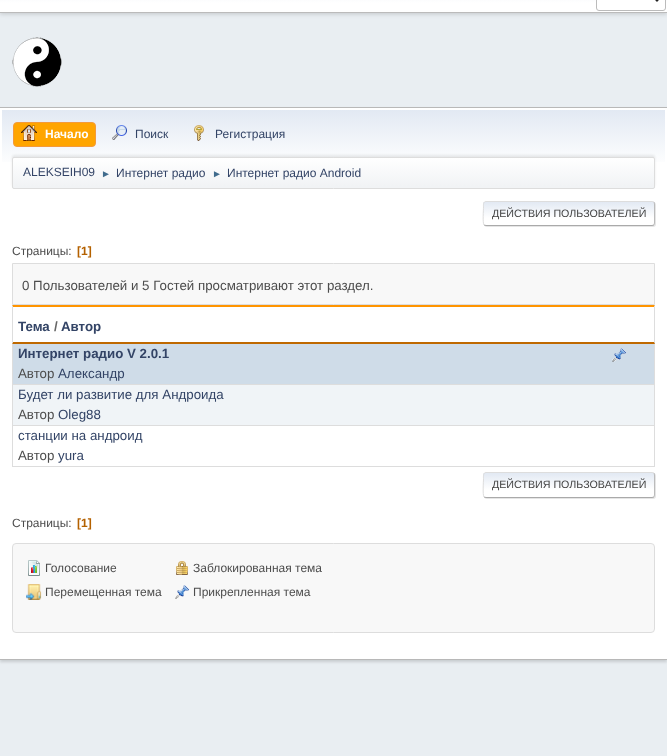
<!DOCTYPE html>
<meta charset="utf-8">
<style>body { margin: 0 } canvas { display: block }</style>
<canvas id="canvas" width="667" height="756"></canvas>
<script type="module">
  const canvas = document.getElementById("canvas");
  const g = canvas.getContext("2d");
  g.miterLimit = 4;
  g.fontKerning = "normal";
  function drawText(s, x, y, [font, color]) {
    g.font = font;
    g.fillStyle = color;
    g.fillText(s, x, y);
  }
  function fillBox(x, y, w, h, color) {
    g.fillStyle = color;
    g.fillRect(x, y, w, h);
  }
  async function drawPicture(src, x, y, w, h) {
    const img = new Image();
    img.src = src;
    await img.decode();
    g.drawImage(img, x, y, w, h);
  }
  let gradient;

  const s1 = ["bold 12px Liberation Sans", "#FFFFFF"];
  const s2 = ["12px Liberation Sans", "#334466"];
  const s3 = ["10px Liberation Sans", "#3F6B8C"];
  const s4 = ["10.7px Liberation Sans", "#444444"];
  const s5 = ["12px Liberation Sans", "#4D4D4D"];
  const s6 = ["bold 12px Liberation Sans", "#B46100"];
  const s7 = ["13.3px Liberation Sans", "#4D4D4D"];
  const s8 = ["bold 13.3px Liberation Sans", "#334466"];
  const s9 = ["bold 13.3px Liberation Sans", "#666666"];
  const s10 = ["13.3px Liberation Sans", "#334466"];

  fillBox(0, 0, 667, 756, "#E9EEF2");
  g.fillStyle = "rgba(0, 0, 0, 0.16)";
  g.filter = "blur(2px)";
  g.beginPath();
  g.rect(0, -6, 667, 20);
  g.fill();
  g.filter = "none";
  gradient = g.createLinearGradient(334, -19, 334, 12);
  gradient.addColorStop(0, "#E2E9F3");
  gradient.addColorStop(0.7, "#FFFFFF");
  g.fillStyle = gradient;
  g.fillRect(0, 0, 667, 12);
  fillBox(0, 12, 667, 1, "#BBBBBB");
  g.fillStyle = "#FFFFFF";
  g.beginPath();
  g.roundRect(596.5, -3.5, 69, 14, 2.5);
  g.fill();
  g.strokeStyle = "#BBBBBB";
  g.stroke();
  g.beginPath();
  g.moveTo(653, -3.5);
  g.lineTo(657, 0.5);
  g.lineTo(661, -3.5);
  g.strokeStyle = "#222222";
  g.lineWidth = 2;
  g.stroke();
  await drawPicture("pic1.png", 12, 37, 50, 50);
  g.fillStyle = "rgba(0, 0, 0, 0.14)";
  g.filter = "blur(1.5px)";
  g.beginPath();
  g.rect(0, 109, 667, 553);
  g.fill();
  g.filter = "none";
  fillBox(0, 108, 667, 551, "#FFFFFF");
  fillBox(0, 107, 667, 1, "#B8B8B8");
  fillBox(0, 659, 667, 1, "#B8B8B8");
  gradient = g.createLinearGradient(334, 110, 334, 191);
  gradient.addColorStop(0, "#E2E9F3");
  gradient.addColorStop(0.7, "#FFFFFF");
  g.fillStyle = gradient;
  g.fillRect(2, 110, 663, 52);
  g.fillStyle = "#FFA500";
  g.beginPath();
  g.roundRect(13.5, 122.5, 82, 24, 3.5);
  g.fill();
  g.strokeStyle = "#F49A3A";
  g.lineWidth = 1;
  g.stroke();
  await drawPicture("pic2.png", 21, 125, 16, 16);
  drawText("Начало", 45, 138, s1);
  await drawPicture("pic3.png", 112, 125, 15, 15);
  drawText("Поиск", 135, 138, s2);
  await drawPicture("pic4.png", 194, 125, 10, 16);
  drawText("Регистрация", 215, 138, s2);
  g.fillStyle = "rgba(0, 0, 0, 0.08)";
  g.filter = "blur(1px)";
  g.beginPath();
  g.roundRect(12, 155, 643, 32, 2);
  g.fill();
  g.filter = "none";
  g.save();
  g.beginPath();
  g.roundRect(12, 157, 643, 32, 2);
  g.clip();
  gradient = g.createLinearGradient(334, 158, 334, 188);
  gradient.addColorStop(0, "#FFFFFF");
  gradient.addColorStop(0.95, "#F1F3F5");
  g.fillStyle = gradient;
  g.fillRect(12, 158, 643, 30);
  g.restore();
  g.beginPath();
  g.roundRect(12.5, 157.5, 642, 31, 1.5);
  g.strokeStyle = "#DDDDDD";
  g.stroke();
  drawText("ALEKSEIH09", 23, 176, s2);
  drawText("►", 101, 177, s3);
  drawText("Интернет радио", 116, 177, s2);
  drawText("►", 212, 177, s3);
  drawText("Интернет радио Android", 227, 177, s2);
  g.fillStyle = "rgba(0, 0, 0, 0.1)";
  g.filter = "blur(0.5px)";
  g.beginPath();
  g.roundRect(484, 202, 172, 25, 3);
  g.fill();
  g.filter = "none";
  g.save();
  g.beginPath();
  g.roundRect(483, 201, 172, 25, 3);
  g.clip();
  gradient = g.createLinearGradient(569, 202, 569, 225);
  gradient.addColorStop(0, "#E2E9F3");
  gradient.addColorStop(0.7, "#FFFFFF");
  g.fillStyle = gradient;
  g.fillRect(483, 202, 172, 23);
  g.restore();
  g.beginPath();
  g.moveTo(654, 202);
  g.bezierCurveTo(654, 202.5, 654.5, 203.5, 654.5, 204);
  g.lineTo(654.5, 223);
  g.bezierCurveTo(654.5, 223.5, 654, 224.5, 654, 225);
  g.strokeStyle = "#BBBBBB";
  g.stroke();
  g.beginPath();
  g.moveTo(654, 225);
  g.lineTo(652, 225.5);
  g.lineTo(486, 225.5);
  g.lineTo(484, 225);
  g.strokeStyle = "#AAAAAA";
  g.stroke();
  g.beginPath();
  g.moveTo(484, 225);
  g.bezierCurveTo(482.5, 223, 483.5, 210, 483.5, 207);
  g.bezierCurveTo(483.5, 205, 483, 201.5, 486, 201.5);
  g.lineTo(652, 201.5);
  g.lineTo(654, 202);
  g.strokeStyle = "#DDDDDD";
  g.stroke();
  drawText("ДЕЙСТВИЯ ПОЛЬЗОВАТЕЛЕЙ", 492, 217, s4);
  drawText("Страницы:", 12, 255, s5);
  drawText("[1]", 77, 255, s6);
  g.fillStyle = "#F8F8F8";
  g.beginPath();
  g.rect(12.5, 263.5, 642, 41);
  g.fill();
  g.stroke();
  drawText("0 Пользователей и 5 Гостей просматривают этот раздел.", 22, 290, s7);
  g.fillStyle = "#FF9400";
  g.beginPath();
  g.moveTo(12, 305);
  g.lineTo(655, 305);
  g.lineTo(654, 307);
  g.lineTo(13, 307);
  g.closePath();
  g.fill();
  g.fillStyle = "#DDDDDD";
  g.beginPath();
  g.moveTo(655, 305);
  g.lineTo(655, 344);
  g.lineTo(654, 342);
  g.lineTo(654, 307);
  g.closePath();
  g.fill();
  g.fillStyle = "#BF6900";
  g.beginPath();
  g.moveTo(655, 344);
  g.lineTo(12, 344);
  g.lineTo(13, 342);
  g.lineTo(654, 342);
  g.closePath();
  g.fill();
  g.fillStyle = "#DDDDDD";
  g.beginPath();
  g.moveTo(12, 344);
  g.lineTo(12, 305);
  g.lineTo(13, 307);
  g.lineTo(13, 342);
  g.closePath();
  g.fill();
  drawText("Тема", 18, 331, s8);
  drawText("/", 54, 331, s9);
  drawText("Автор", 61, 331, s8);
  fillBox(13, 344, 641, 40, "#CFDCE8");
  fillBox(654, 344, 1, 123, "#DDDDDD");
  fillBox(12, 384, 643, 1, "#DDDDDD");
  fillBox(12, 344, 1, 41, "#DDDDDD");
  drawText("Интернет радио V 2.0.1", 18, 358, s8);
  await drawPicture("pic5.png", 612, 348, 14, 14);
  drawText("Автор", 18, 378, s7);
  drawText("Александр", 58, 378, s10);
  fillBox(13, 385, 641, 40, "#F0F4F7");
  fillBox(12, 425, 643, 1, "#DDDDDD");
  fillBox(12, 385, 1, 41, "#DDDDDD");
  drawText("Будет ли развитие для Андроида", 18, 399, s10);
  drawText("Автор", 18, 419, s7);
  drawText("Oleg88", 58, 419, s10);
  fillBox(12, 466, 643, 1, "#DDDDDD");
  fillBox(12, 426, 1, 41, "#DDDDDD");
  drawText("станции на андроид", 18, 440, s10);
  drawText("Автор", 18, 460, s7);
  drawText("yura", 58, 460, s10);
  g.fillStyle = "rgba(0, 0, 0, 0.1)";
  g.filter = "blur(0.5px)";
  g.beginPath();
  g.roundRect(484, 473, 172, 26, 3);
  g.fill();
  g.filter = "none";
  g.save();
  g.beginPath();
  g.roundRect(483, 472, 172, 26, 3);
  g.clip();
  gradient = g.createLinearGradient(569, 473, 569, 497);
  gradient.addColorStop(0, "#E2E9F3");
  gradient.addColorStop(0.7, "#FFFFFF");
  g.fillStyle = gradient;
  g.fillRect(483, 473, 172, 24);
  g.restore();
  g.beginPath();
  g.moveTo(654, 473);
  g.bezierCurveTo(654, 473.5, 654.5, 474.5, 654.5, 475);
  g.lineTo(654.5, 495);
  g.bezierCurveTo(654.5, 495.5, 654, 496.5, 654, 497);
  g.strokeStyle = "#BBBBBB";
  g.stroke();
  g.beginPath();
  g.moveTo(654, 497);
  g.lineTo(652, 497.5);
  g.lineTo(486, 497.5);
  g.lineTo(484, 497);
  g.strokeStyle = "#AAAAAA";
  g.stroke();
  g.beginPath();
  g.moveTo(484, 497);
  g.bezierCurveTo(482.5, 495, 483.5, 481.5, 483.5, 478.5);
  g.bezierCurveTo(483.5, 476.5, 483, 472.5, 486, 472.5);
  g.lineTo(652, 472.5);
  g.lineTo(654, 473);
  g.strokeStyle = "#DDDDDD";
  g.stroke();
  drawText("ДЕЙСТВИЯ ПОЛЬЗОВАТЕЛЕЙ", 492, 488, s4);
  drawText("Страницы:", 12, 527, s5);
  drawText("[1]", 77, 527, s6);
  g.fillStyle = "#F8F8F8";
  g.beginPath();
  g.roundRect(12.5, 543.5, 642, 89, 3.5);
  g.fill();
  g.stroke();
  await drawPicture("pic6.png", 28, 560, 12, 16);
  drawText("Голосование", 45, 572, s5);
  await drawPicture("pic7.png", 26, 584, 16, 16);
  drawText("Перемещенная тема", 45, 596, s5);
  await drawPicture("pic8.png", 176, 561, 12, 14);
  drawText("Заблокированная тема", 193, 572, s5);
  await drawPicture("pic9.png", 175, 585, 14, 14);
  drawText("Прикрепленная тема", 193, 596, s5);
</script>
